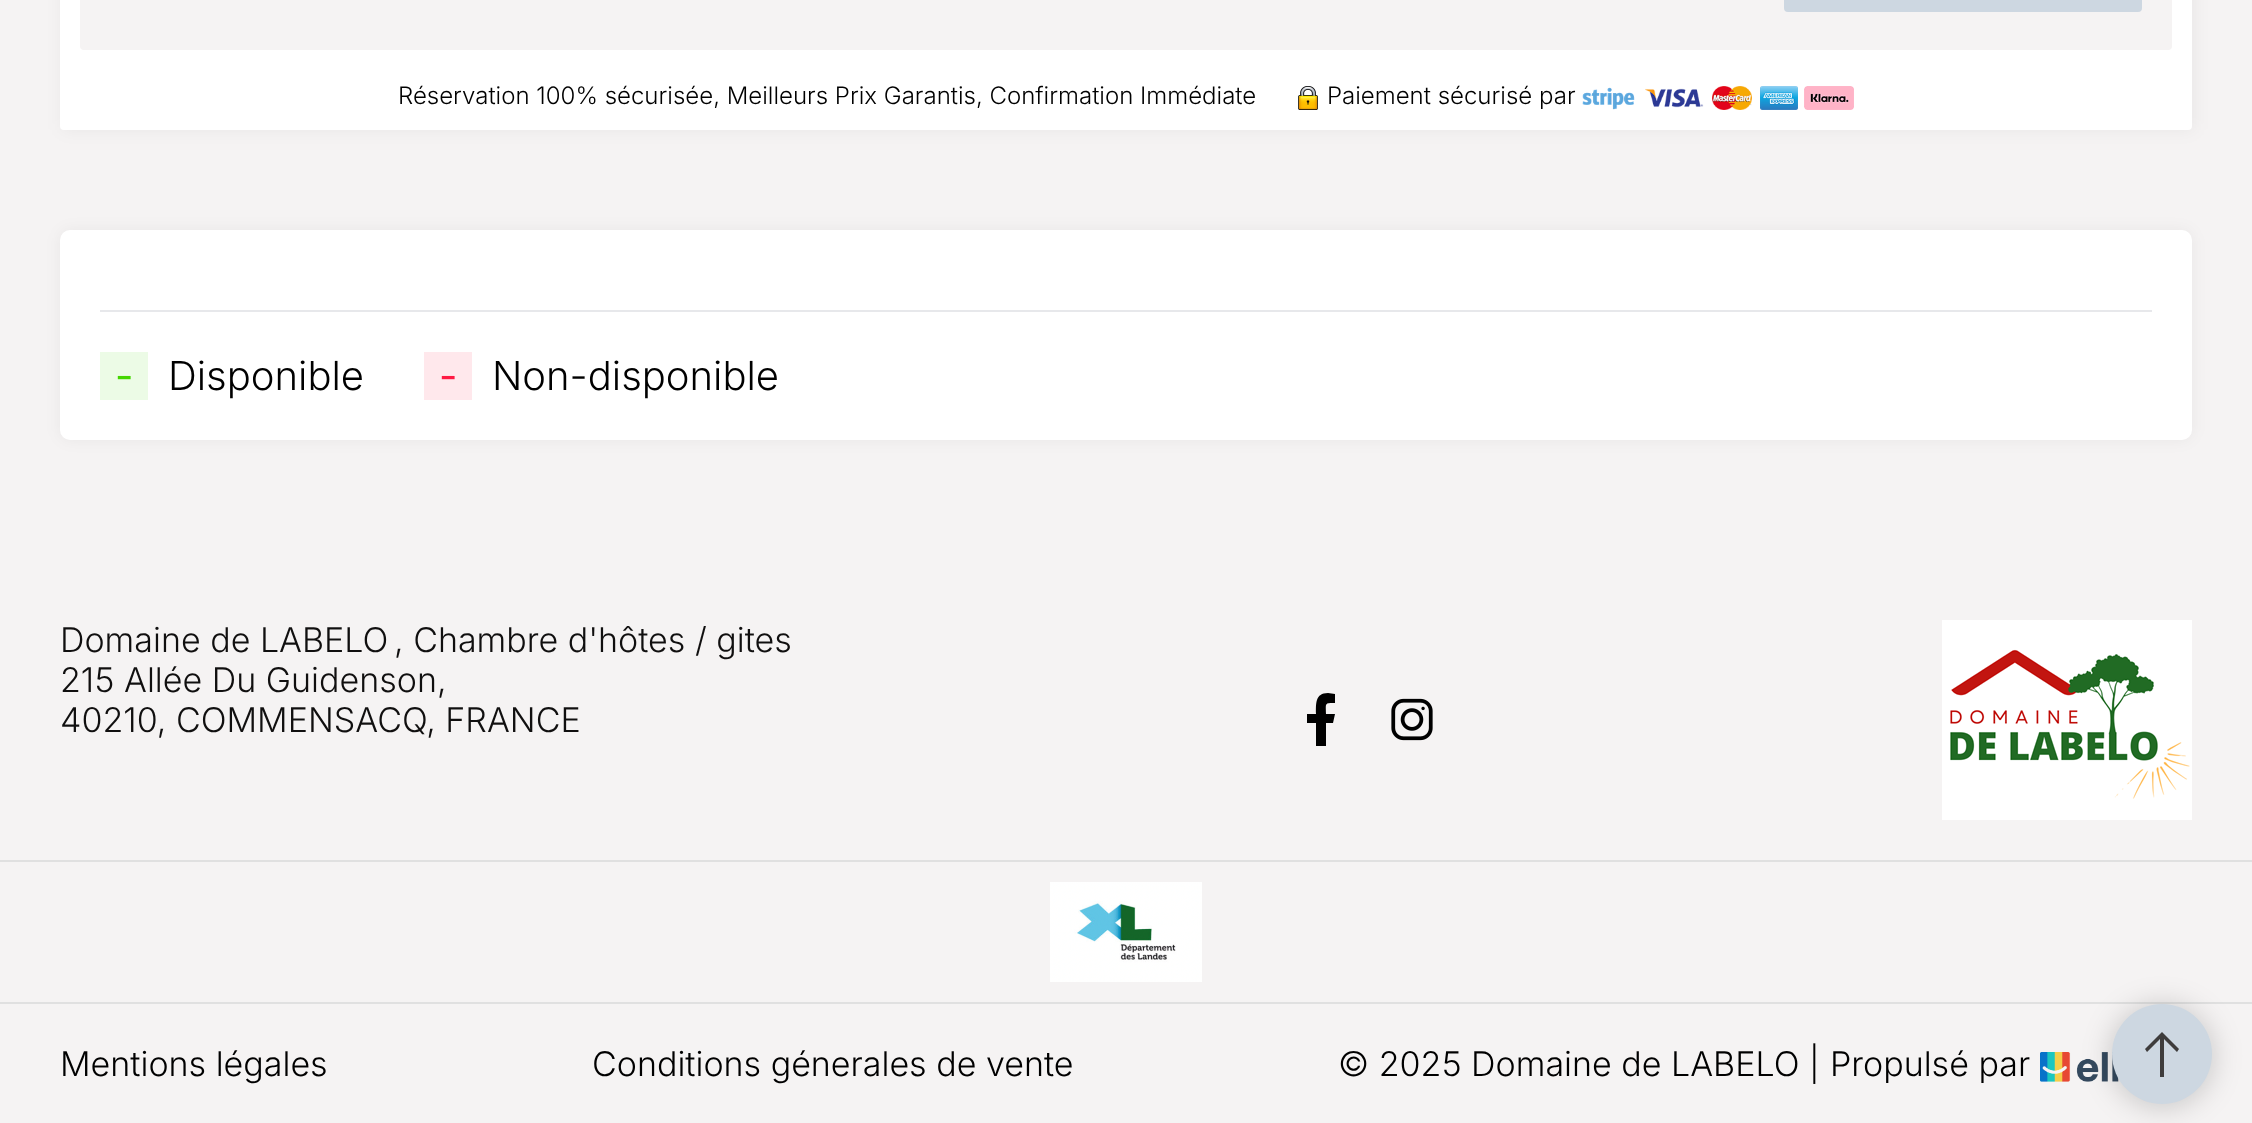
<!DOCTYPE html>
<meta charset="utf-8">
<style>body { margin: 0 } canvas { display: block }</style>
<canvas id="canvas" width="2252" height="1123"></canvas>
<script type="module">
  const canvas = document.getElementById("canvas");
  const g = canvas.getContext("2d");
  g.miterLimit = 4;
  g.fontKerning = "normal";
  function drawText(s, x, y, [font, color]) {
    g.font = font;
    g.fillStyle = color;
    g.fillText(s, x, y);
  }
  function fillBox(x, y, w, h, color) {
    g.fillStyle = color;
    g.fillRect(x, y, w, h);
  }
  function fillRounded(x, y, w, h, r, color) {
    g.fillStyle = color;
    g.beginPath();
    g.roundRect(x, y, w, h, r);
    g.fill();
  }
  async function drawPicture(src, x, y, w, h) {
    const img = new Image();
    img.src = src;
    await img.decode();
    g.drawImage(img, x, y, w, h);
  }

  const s1 = ["300 24px Inter", "#000000"];
  const s2 = ["40px Inter", "#44D600"];
  const s3 = ["300 40px Inter", "#000000"];
  const s4 = ["40px Inter", "#FF1A43"];
  const s5 = ["300 34px Inter", "#100F0F"];
  const s6 = ["300 34px Inter", "#000000"];

  fillBox(0, 0, 2252, 1123, "#F5F3F3");
  g.fillStyle = "rgba(0, 0, 0, 0.05)";
  g.filter = "blur(8.5px)";
  g.beginPath();
  g.roundRect(62, -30, 2132, 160, 4);
  g.fill();
  g.filter = "none";
  fillRounded(60, -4, 2132, 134, 4, "#FFFFFF");
  fillRounded(80, -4, 2092, 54, 4, "#F5F3F3");
  fillRounded(1784, -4, 358, 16, 4, "#CDD7E1");
  drawText("Réservation 100% sécurisée, Meilleurs Prix Garantis, Confirmation Immédiate", 398, 104, s1);
  await drawPicture("pic1.png", 1298, 86, 20, 24);
  drawText("Paiement sécurisé par", 1327, 104, s1);
  await drawPicture("pic2.png", 1582, 87, 53, 23);
  await drawPicture("pic3.png", 1645, 88, 59, 20);
  await drawPicture("pic4.png", 1712, 86, 40, 24);
  await drawPicture("pic5.png", 1760, 86, 38, 24);
  await drawPicture("pic6.png", 1804, 86, 50, 24);
  g.fillStyle = "rgba(0, 0, 0, 0.05)";
  g.filter = "blur(7.5px)";
  g.beginPath();
  g.roundRect(60, 230, 2132, 210, 10);
  g.fill();
  g.filter = "none";
  fillRounded(60, 230, 2132, 210, 10, "#FFFFFF");
  fillBox(100, 310, 2052, 2, "#E7E8EB");
  fillBox(100, 352, 48, 48, "#ECFBE6");
  drawText("-", 115, 390, s2);
  drawText("Disponible", 168, 390, s3);
  fillBox(424, 352, 48, 48, "#FFE8EC");
  drawText("-", 439, 390, s4);
  drawText("Non-disponible", 492, 390, s3);
  drawText("Domaine de LABELO", 60, 652, s5);
  drawText(", Chambre d'hôtes / gites", 394, 652, s5);
  drawText("215 Allée Du Guidenson,", 60, 692, s5);
  drawText("40210, COMMENSACQ, FRANCE", 60, 732, s5);
  g.fillStyle = "#000000";
  g.beginPath();
  g.moveTo(1328, 693);
  g.bezierCurveTo(1315, 693, 1316, 704, 1316, 714);
  g.lineTo(1307, 714);
  g.lineTo(1307, 723);
  g.lineTo(1316, 723);
  g.lineTo(1316, 746);
  g.lineTo(1326, 746);
  g.lineTo(1326, 723);
  g.lineTo(1333, 723);
  g.lineTo(1335, 714);
  g.lineTo(1326, 714);
  g.bezierCurveTo(1326, 703, 1324, 703, 1335, 703);
  g.lineTo(1335, 694);
  g.closePath();
  g.fill();
  await drawPicture("pic7.png", 1391, 698, 42, 43);
  await drawPicture("pic8.png", 1942, 620, 250, 200);
  fillBox(0, 860, 2252, 2, "#E0E0E0");
  await drawPicture("pic9.png", 1050, 882, 152, 100);
  fillBox(0, 1002, 2252, 2, "#E0E0E0");
  drawText("Mentions légales", 60, 1076, s6);
  drawText("Conditions génerales de vente", 592, 1076, s6);
  drawText("© 2025 Domaine de LABELO", 1338, 1076, s6);
  drawText("|", 1809, 1076, s6);
  drawText("Propulsé par", 1830, 1076, s6);
  await drawPicture("pic10.png", 2040, 1052, 79, 30);
  g.fillStyle = "rgba(0, 0, 0, 0.2)";
  g.filter = "blur(15px)";
  g.beginPath();
  g.roundRect(2112, 1006, 100, 100, 50);
  g.fill();
  g.filter = "none";
  g.fillStyle = "#CDD7E1";
  g.beginPath();
  g.arc(2162, 1054, 50, 0, Math.PI * 2);
  g.fill();
  g.fillStyle = "#3E3C3C";
  g.beginPath();
  g.moveTo(2164, 1077);
  g.lineTo(2164, 1039);
  g.lineTo(2177, 1052);
  g.lineTo(2179, 1049);
  g.lineTo(2162, 1032);
  g.lineTo(2145, 1049);
  g.lineTo(2147, 1052);
  g.lineTo(2160, 1039);
  g.lineTo(2160, 1077);
  g.closePath();
  g.fill();
</script>
